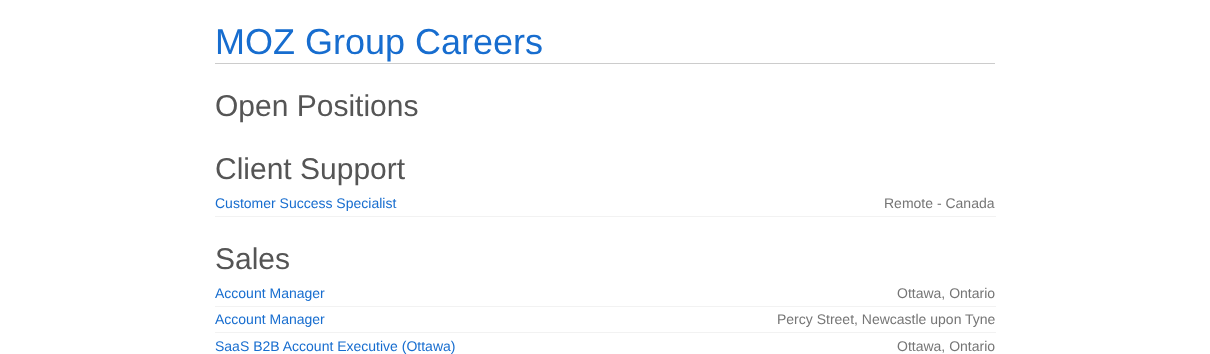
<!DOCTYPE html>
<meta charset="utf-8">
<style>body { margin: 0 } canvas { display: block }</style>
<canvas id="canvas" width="1210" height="354"></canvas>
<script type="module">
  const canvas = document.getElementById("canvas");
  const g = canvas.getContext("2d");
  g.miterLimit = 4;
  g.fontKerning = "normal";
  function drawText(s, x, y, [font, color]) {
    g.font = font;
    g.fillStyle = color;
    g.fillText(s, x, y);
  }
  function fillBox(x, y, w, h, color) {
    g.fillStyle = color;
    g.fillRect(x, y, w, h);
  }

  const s1 = ["36px Liberation Sans", "#176DCF"];
  const s2 = ["30px Liberation Sans", "#555555"];
  const s3 = ["14px Liberation Sans", "#176DCF"];
  const s4 = ["14px Liberation Sans", "#757575"];

  fillBox(0, 0, 1210, 354, "#FFFFFF");
  fillBox(215, 63, 780, 1, "#CCCCCC");
  drawText("MOZ Group Careers", 215, 54, s1);
  drawText("Open Positions", 215, 116, s2);
  drawText("Client Support", 215, 179, s2);
  drawText("Customer Success Specialist", 215, 208, s3);
  fillBox(215, 216, 781, 1, "#F2F2F2");
  drawText("Remote - Canada", 884, 208, s4);
  drawText("Sales", 215, 269, s2);
  drawText("Account Manager", 215, 298, s3);
  fillBox(215, 306, 781, 1, "#F2F2F2");
  drawText("Ottawa, Ontario", 897, 298, s4);
  drawText("Account Manager", 215, 324, s3);
  fillBox(215, 332, 781, 1, "#F2F2F2");
  drawText("Percy Street, Newcastle upon Tyne", 777, 324, s4);
  drawText("SaaS B2B Account Executive (Ottawa)", 215, 351, s3);
  drawText("Ottawa, Ontario", 897, 351, s4);
</script>
